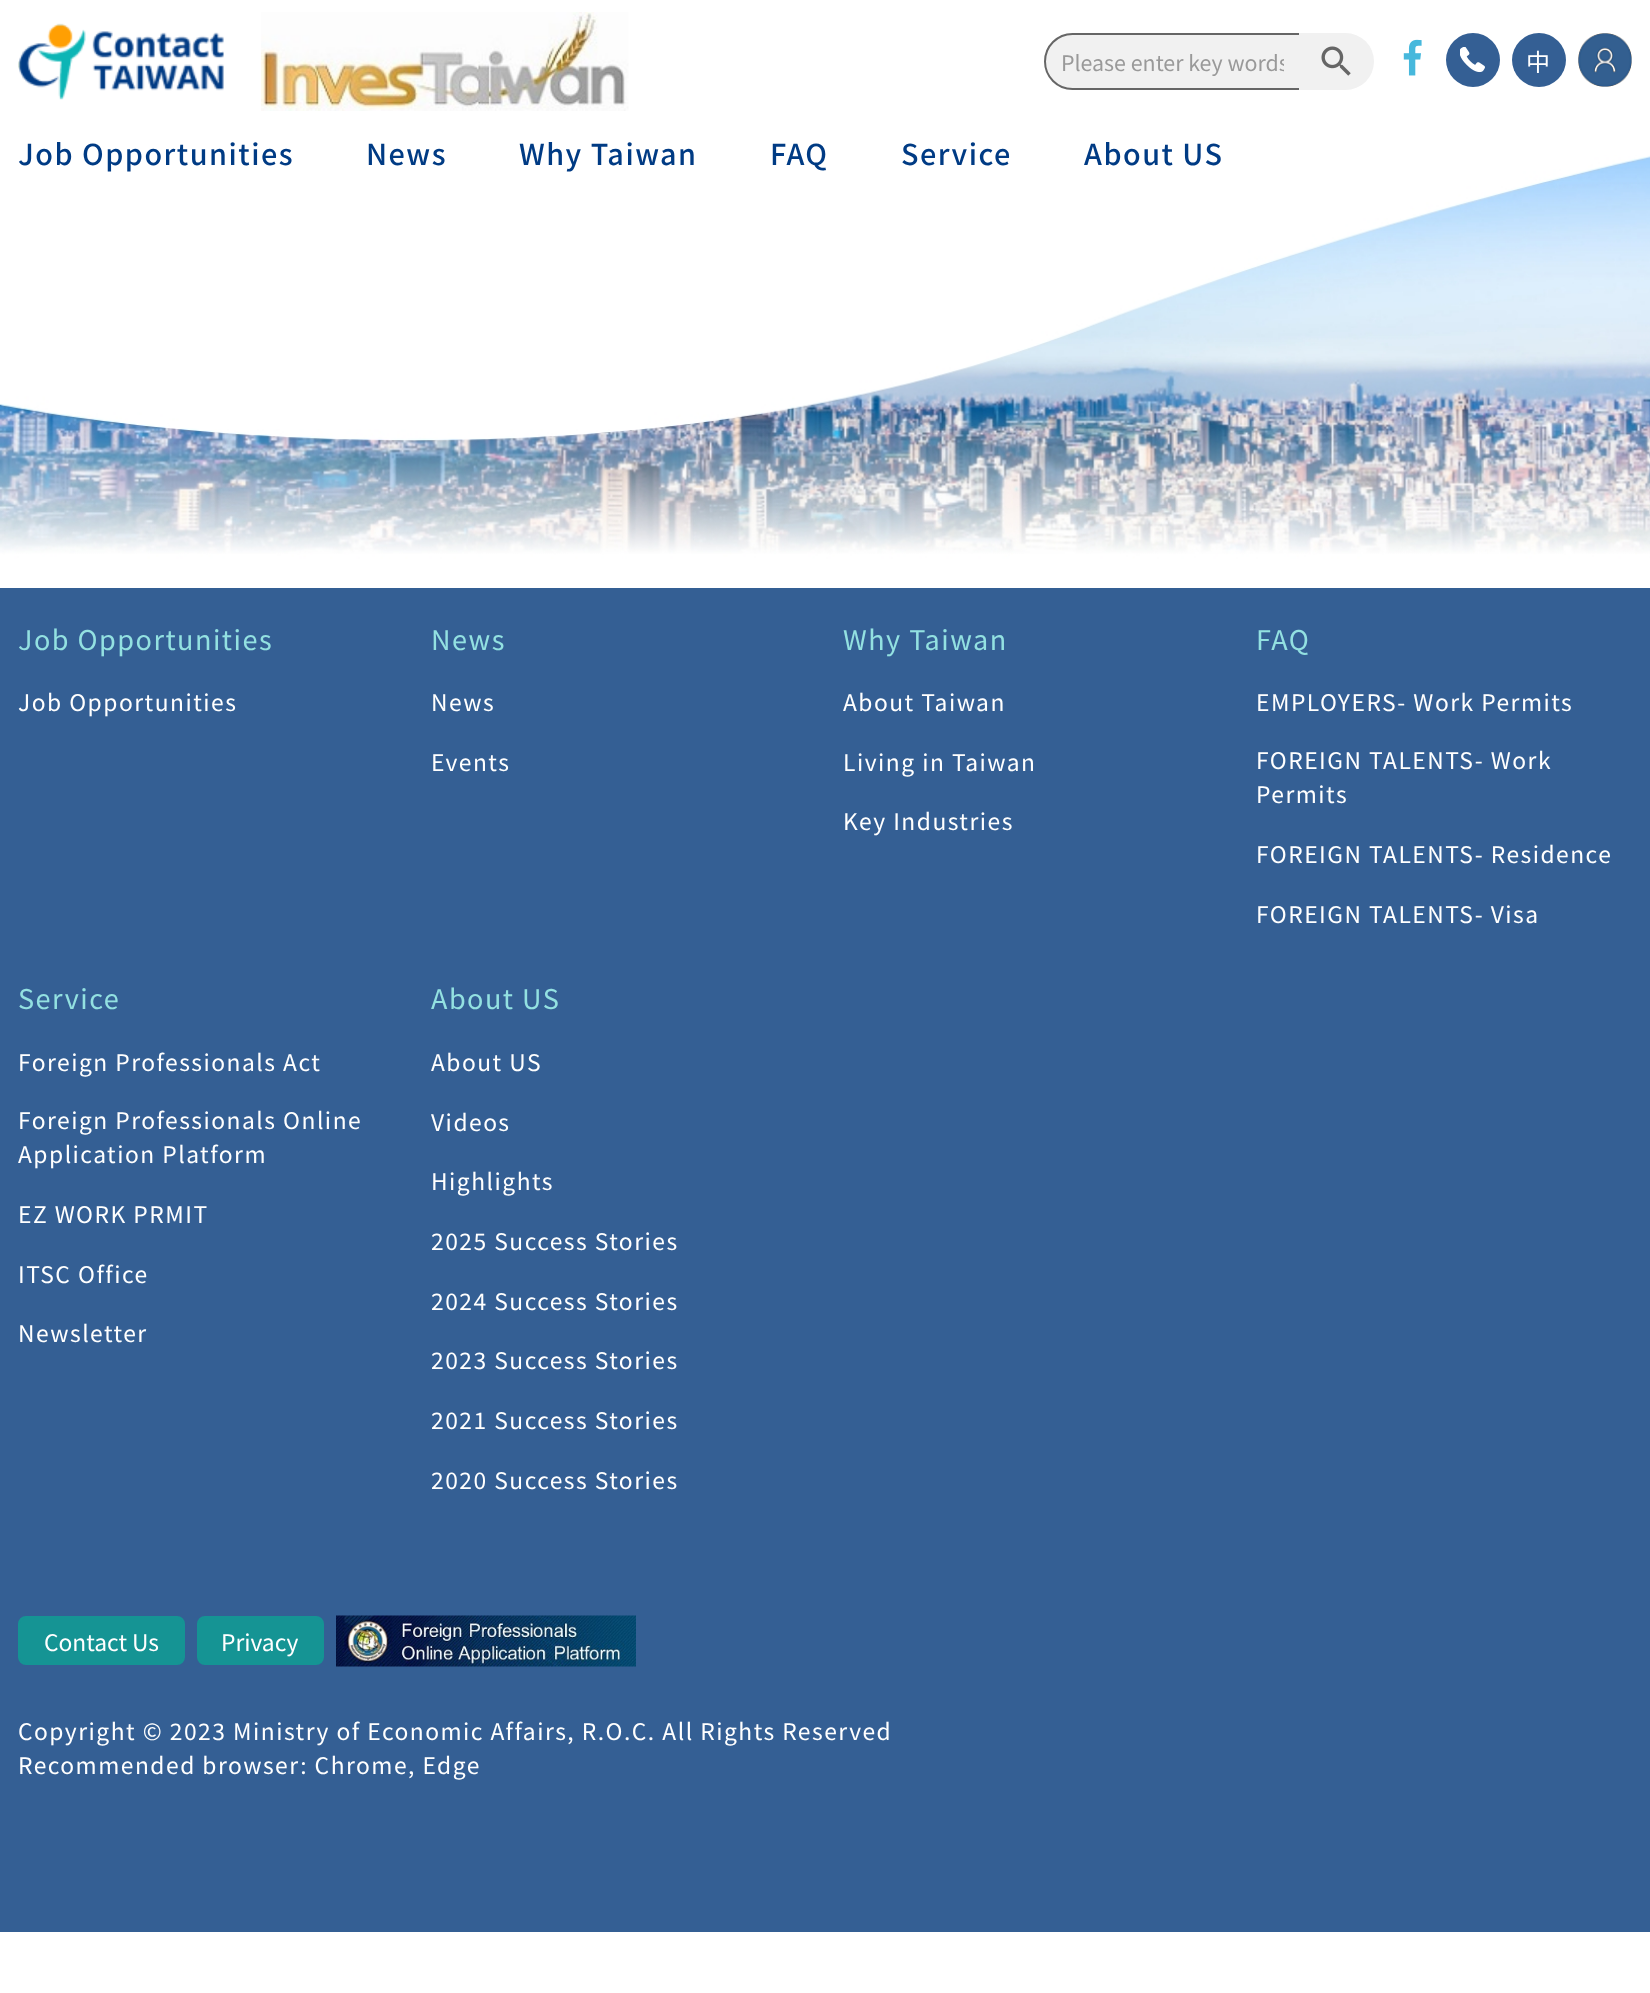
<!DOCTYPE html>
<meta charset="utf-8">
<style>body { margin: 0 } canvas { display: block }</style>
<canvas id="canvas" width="1650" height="1993"></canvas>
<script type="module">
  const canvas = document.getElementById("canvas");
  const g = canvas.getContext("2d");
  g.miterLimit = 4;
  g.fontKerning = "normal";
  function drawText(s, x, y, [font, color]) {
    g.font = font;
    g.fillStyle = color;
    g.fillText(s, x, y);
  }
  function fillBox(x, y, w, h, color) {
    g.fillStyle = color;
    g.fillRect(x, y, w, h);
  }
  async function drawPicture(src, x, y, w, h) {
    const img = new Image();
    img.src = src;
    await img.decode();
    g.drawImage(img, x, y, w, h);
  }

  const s1 = ["21.4px Noto Sans TC", "#999999"];
  const s2 = ["24px Noto Sans TC", "#FFFFFF"];
  const s3 = ["500 28.75px Noto Sans TC", "#003B84"];
  const s4 = ["27px Noto Sans TC", "#93E1E1"];
  const s5 = ["22.8px Noto Sans TC", "#FFFFFF"];

  fillBox(0, 0, 1650, 1993, "#FFFFFF");
  await drawPicture("pic1.png", 18, 23, 206, 77);
  await drawPicture("pic2.png", 261, 12, 368, 99);
  g.fillStyle = "#F1F1F1";
  g.beginPath();
  g.roundRect(1045, 34, 255, 55, [27.5, 0, 0, 27.5]);
  g.fill();
  g.strokeStyle = "#666666";
  g.lineWidth = 2;
  g.stroke();
  g.save();
  g.beginPath();
  g.rect(1061, 47, 223, 31);
  g.clip();
  drawText("Please enter key words", 1061, 71, s1);
  g.restore();
  g.beginPath();
  g.roundRect(1299, 33, 75, 57, [0, 28.5, 28.5, 0]);
  g.fill();
  await drawPicture("pic3.png", 1321, 46, 30, 30);
  await drawPicture("pic4.png", 1403, 39, 19, 37);
  g.fillStyle = "#345F94";
  g.beginPath();
  g.arc(1473, 60, 27, 0, Math.PI * 2);
  g.fill();
  await drawPicture("pic5.png", 1460, 47, 25, 26);
  g.beginPath();
  g.arc(1539, 60, 27, 0, Math.PI * 2);
  g.fill();
  g.letterSpacing = "1.5px";
  drawText("中", 1526, 71, s2);
  await drawPicture("pic6.png", 1578, 33, 54, 54);
  await drawPicture("pic7.png", 0, 155, 1650, 433);
  drawText("Job Opportunities", 18, 165, s3);
  drawText("News", 366, 165, s3);
  drawText("Why Taiwan", 519, 165, s3);
  drawText("FAQ", 770, 165, s3);
  drawText("Service", 901, 165, s3);
  drawText("About US", 1084, 165, s3);
  fillBox(0, 588, 1650, 1344, "#345F94");
  drawText("Job Opportunities", 18, 650, s4);
  drawText("Job Opportunities", 18, 711, s5);
  drawText("News", 431, 650, s4);
  drawText("News", 431, 711, s5);
  drawText("Events", 431, 771, s5);
  drawText("Why Taiwan", 843, 650, s4);
  drawText("About Taiwan", 843, 711, s5);
  drawText("Living in Taiwan", 843, 771, s5);
  drawText("Key Industries", 843, 830, s5);
  drawText("FAQ", 1256, 650, s4);
  drawText("EMPLOYERS- Work Permits", 1256, 711, s5);
  drawText("FOREIGN TALENTS- Work", 1256, 769, s5);
  drawText("Permits", 1256, 803, s5);
  drawText("FOREIGN TALENTS- Residence", 1256, 863, s5);
  drawText("FOREIGN TALENTS- Visa", 1256, 923, s5);
  drawText("Service", 18, 1009, s4);
  drawText("Foreign Professionals Act", 18, 1071, s5);
  drawText("Foreign Professionals Online", 18, 1129, s5);
  drawText("Application Platform", 18, 1163, s5);
  drawText("EZ WORK PRMIT", 18, 1223, s5);
  drawText("ITSC Office", 18, 1283, s5);
  drawText("Newsletter", 18, 1342, s5);
  drawText("About US", 431, 1009, s4);
  drawText("About US", 431, 1071, s5);
  drawText("Videos", 431, 1131, s5);
  drawText("Highlights", 431, 1190, s5);
  drawText("2025 Success Stories", 431, 1250, s5);
  drawText("2024 Success Stories", 431, 1310, s5);
  drawText("2023 Success Stories", 431, 1369, s5);
  drawText("2021 Success Stories", 431, 1429, s5);
  drawText("2020 Success Stories", 431, 1489, s5);
  g.fillStyle = "#159494";
  g.beginPath();
  g.roundRect(19, 1617, 165, 47, 7);
  g.fill();
  g.strokeStyle = "#159494";
  g.stroke();
  g.letterSpacing = "0px";
  drawText("Contact Us", 44, 1651, s5);
  g.fillStyle = "#159494";
  g.beginPath();
  g.roundRect(198, 1617, 125, 47, 7);
  g.fill();
  g.stroke();
  drawText("Privacy", 221, 1651, s5);
  await drawPicture("pic8.png", 336, 1615, 300, 52);
  g.letterSpacing = "1.5px";
  drawText("Copyright © 2023 Ministry of Economic Affairs, R.O.C. All Rights Reserved", 18, 1740, s5);
  drawText("Recommended browser: Chrome, Edge", 18, 1774, s5);
</script>
